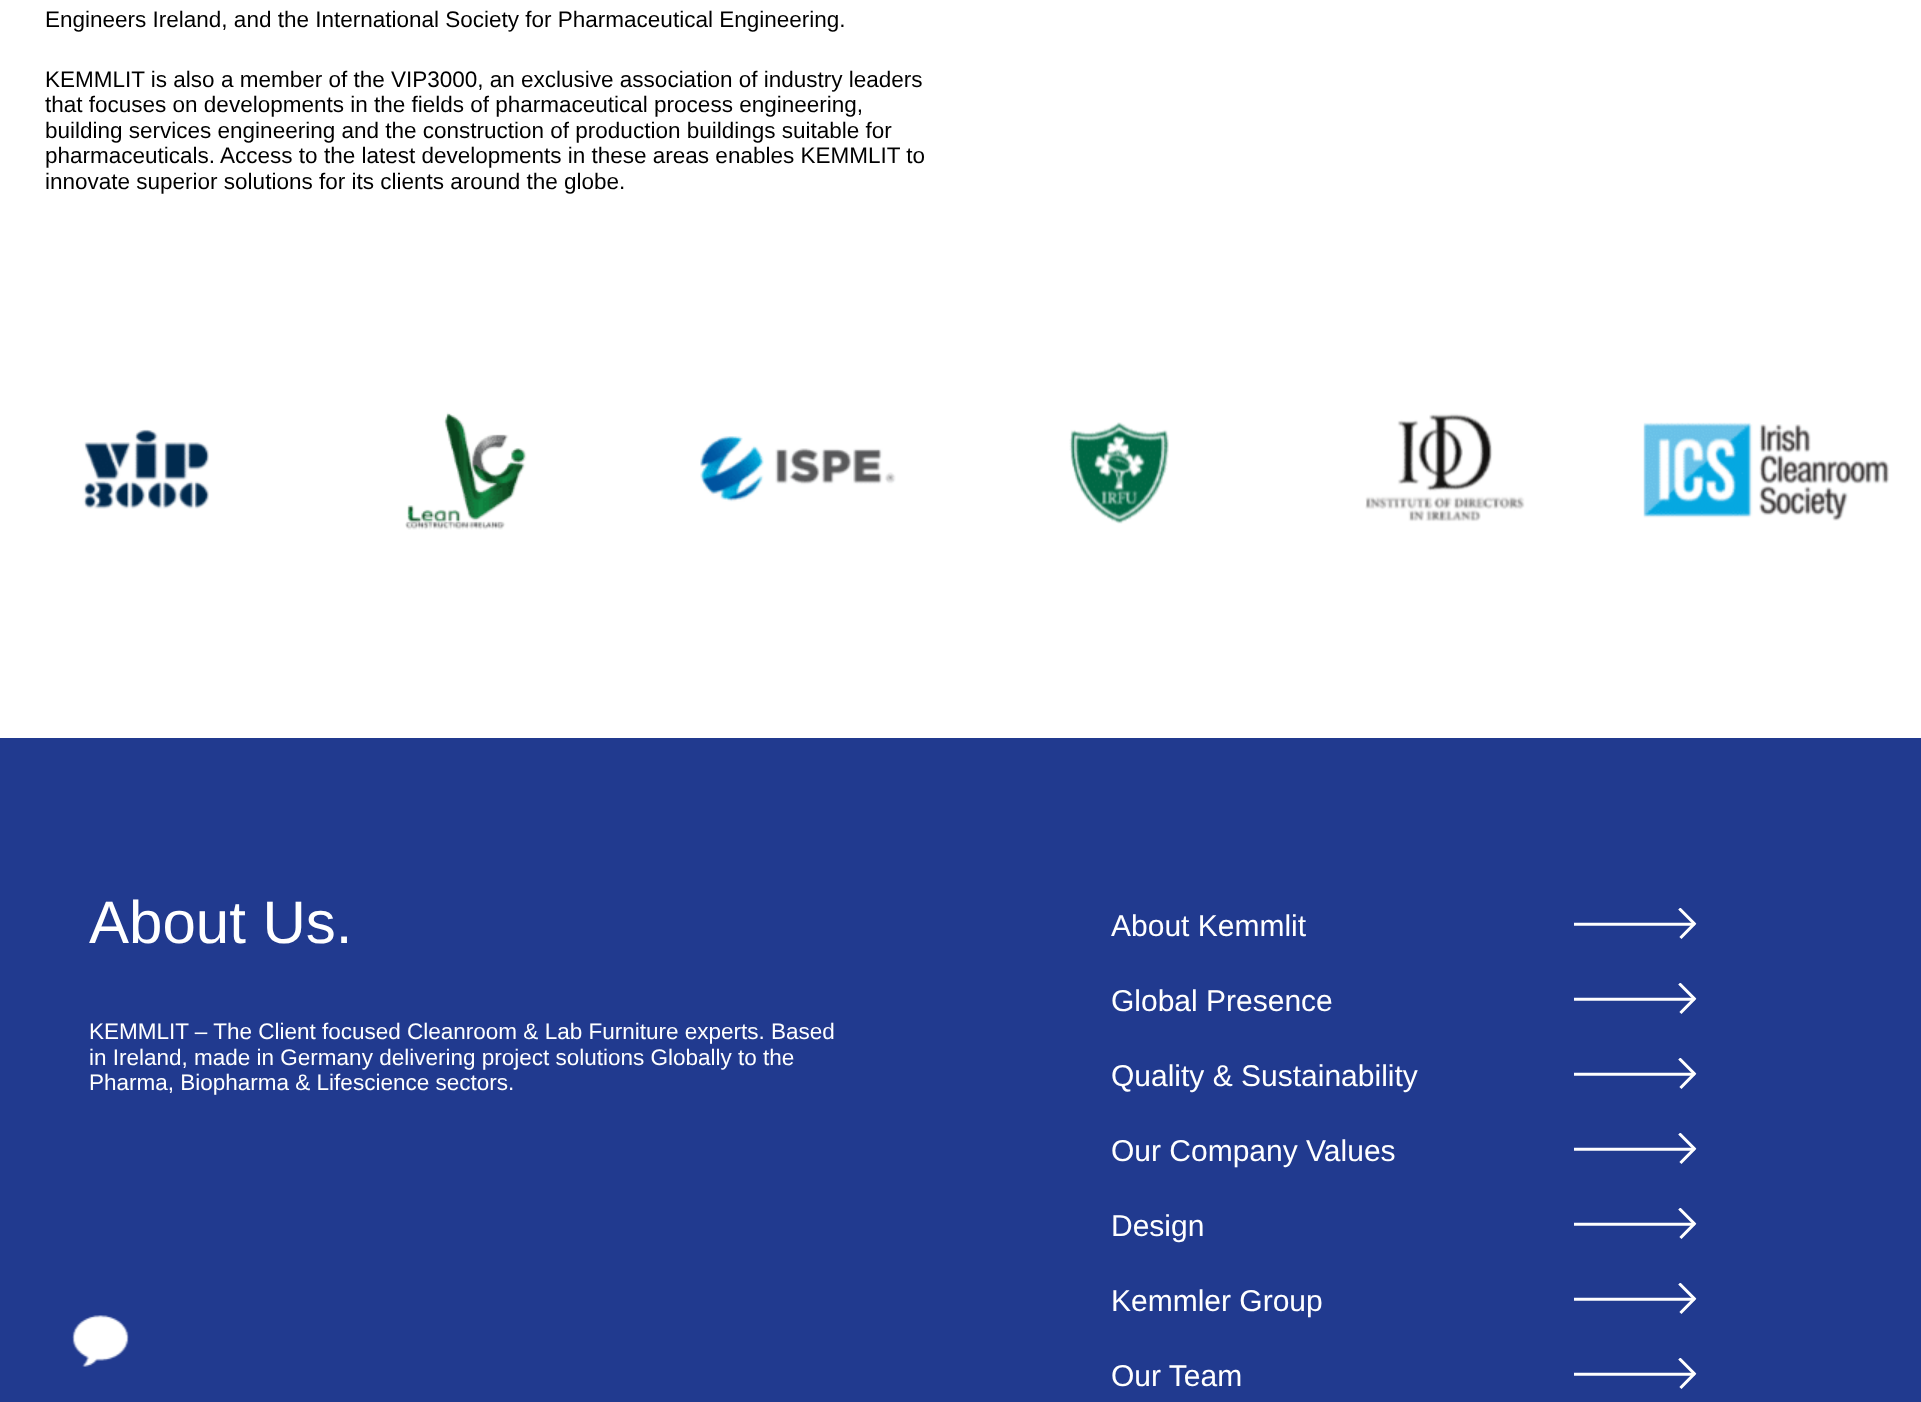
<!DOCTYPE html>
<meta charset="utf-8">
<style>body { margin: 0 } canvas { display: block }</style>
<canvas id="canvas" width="1921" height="1402"></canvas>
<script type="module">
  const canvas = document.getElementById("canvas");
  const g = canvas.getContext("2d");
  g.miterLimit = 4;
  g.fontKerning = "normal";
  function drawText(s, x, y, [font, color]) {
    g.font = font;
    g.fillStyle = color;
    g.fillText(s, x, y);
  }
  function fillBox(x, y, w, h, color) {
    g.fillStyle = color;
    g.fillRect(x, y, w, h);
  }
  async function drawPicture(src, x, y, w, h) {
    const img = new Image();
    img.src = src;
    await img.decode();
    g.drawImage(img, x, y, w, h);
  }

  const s1 = ["22.5px Liberation Sans", "#000000"];
  const s2 = ["60px Liberation Sans", "#FFFFFF"];
  const s3 = ["22.5px Liberation Sans", "#FFFFFF"];
  const s4 = ["30px Liberation Sans", "#FFFFFF"];

  fillBox(0, 0, 1921, 1402, "#FFFFFF");
  drawText("Engineers Ireland, and the International Society for Pharmaceutical Engineering.", 45, 27, s1);
  drawText("KEMMLIT is also a member of the VIP3000, an exclusive association of industry leaders", 45, 87, s1);
  drawText("that focuses on developments in the fields of pharmaceutical process engineering,", 45, 112, s1);
  drawText("building services engineering and the construction of production buildings suitable for", 45, 138, s1);
  drawText("pharmaceuticals. Access to the latest developments in these areas enables KEMMLIT to", 45, 163, s1);
  drawText("innovate superior solutions for its clients around the globe.", 45, 189, s1);
  await drawPicture("pic1.png", 83, 429, 126, 80);
  await drawPicture("pic2.png", 405, 412, 122, 118);
  await drawPicture("pic3.png", 700, 436, 196, 66);
  await drawPicture("pic4.png", 1069, 422, 100, 102);
  await drawPicture("pic5.png", 1365, 413, 160, 109);
  await drawPicture("pic6.png", 1643, 422, 247, 99);
  fillBox(0, 738, 1921, 664, "#213A8F");
  drawText("About Us.", 89, 943, s2);
  drawText("KEMMLIT – The Client focused Cleanroom & Lab Furniture experts. Based", 89, 1039, s3);
  drawText("in Ireland, made in Germany delivering project solutions Globally to the", 89, 1065, s3);
  drawText("Pharma, Biopharma & Lifescience sectors.", 89, 1090, s3);
  drawText("About Kemmlit", 1111, 936, s4);
  await drawPicture("pic7.png", 1574, 908, 123, 31);
  drawText("Global Presence", 1111, 1011, s4);
  await drawPicture("pic7.png", 1574, 983, 123, 31);
  drawText("Quality & Sustainability", 1111, 1086, s4);
  await drawPicture("pic7.png", 1574, 1058, 123, 31);
  drawText("Our Company Values", 1111, 1161, s4);
  await drawPicture("pic7.png", 1574, 1133, 123, 31);
  drawText("Design", 1111, 1236, s4);
  await drawPicture("pic7.png", 1574, 1208, 123, 31);
  drawText("Kemmler Group", 1111, 1311, s4);
  await drawPicture("pic7.png", 1574, 1283, 123, 31);
  drawText("Our Team", 1111, 1386, s4);
  await drawPicture("pic7.png", 1574, 1358, 123, 31);
  await drawPicture("pic8.png", 72, 1315, 57, 52);
</script>
